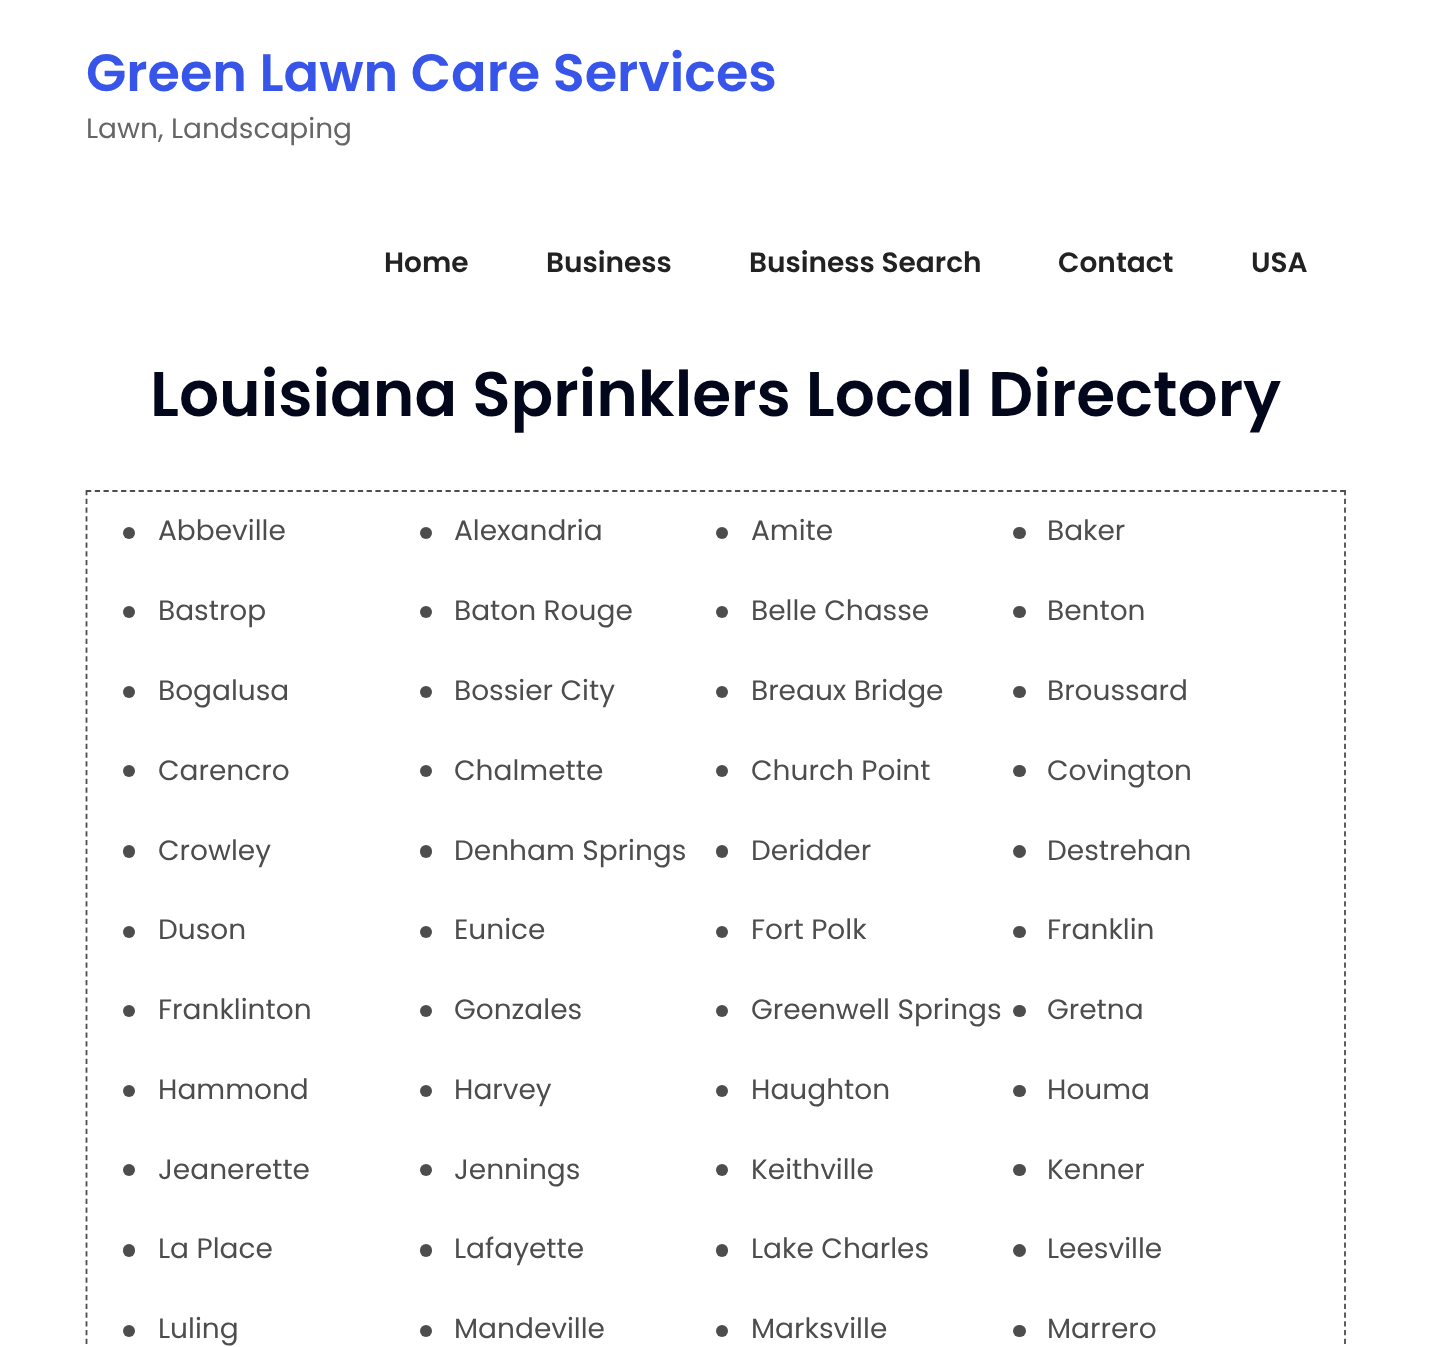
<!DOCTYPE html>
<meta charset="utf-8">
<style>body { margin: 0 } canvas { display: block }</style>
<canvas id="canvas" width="1430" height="1347"></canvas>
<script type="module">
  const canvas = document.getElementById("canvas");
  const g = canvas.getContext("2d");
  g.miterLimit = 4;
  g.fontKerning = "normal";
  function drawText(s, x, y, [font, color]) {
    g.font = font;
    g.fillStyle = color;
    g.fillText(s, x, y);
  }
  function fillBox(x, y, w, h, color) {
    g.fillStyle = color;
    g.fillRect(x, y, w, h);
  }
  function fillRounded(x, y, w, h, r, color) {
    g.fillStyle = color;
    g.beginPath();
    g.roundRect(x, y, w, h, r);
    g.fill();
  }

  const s1 = ["600 52.5px Poppins", "#3855EA"];
  const s2 = ["28px Poppins", "#666666"];
  const s3 = ["600 28px Poppins", "#222222"];
  const s4 = ["600 63px Poppins", "#02071B"];
  const s5 = ["28px Poppins", "#4D4D4D"];

  fillBox(0, 0, 1430, 1347, "#FFFFFF");
  drawText("Green Lawn Care Services", 86, 91, s1);
  drawText("Lawn, Landscaping", 86, 138, s2);
  drawText("Home", 384, 272, s3);
  drawText("Business", 546, 272, s3);
  drawText("Business Search", 749, 272, s3);
  drawText("Contact", 1058, 272, s3);
  drawText("USA", 1251, 272, s3);
  drawText("Louisiana Sprinklers Local Directory", 150, 416, s4);
  g.beginPath();
  g.moveTo(86, 491);
  g.lineTo(1346, 491);
  g.strokeStyle = "#4D4D4D";
  g.lineWidth = 1.8;
  g.setLineDash([5.25, 3.52]);
  g.stroke();
  g.beginPath();
  g.moveTo(1345, 490);
  g.lineTo(1345, 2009);
  g.setLineDash([5.25, 3.5]);
  g.stroke();
  g.beginPath();
  g.moveTo(86.5, 490);
  g.lineTo(86.5, 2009);
  g.stroke();
  g.fillStyle = "#4D4D4D";
  g.beginPath();
  g.arc(129, 533, 6, 0, Math.PI * 2);
  g.fill();
  drawText("Abbeville", 158, 540, s5);
  g.beginPath();
  g.arc(426, 533, 6, 0, Math.PI * 2);
  g.fill();
  drawText("Alexandria", 454, 540, s5);
  g.beginPath();
  g.arc(722, 533, 6, 0, Math.PI * 2);
  g.fill();
  drawText("Amite", 751, 540, s5);
  fillRounded(1013, 527, 13, 12, 6, "#4D4D4D");
  drawText("Baker", 1047, 540, s5);
  g.beginPath();
  g.arc(129, 612, 6, 0, Math.PI * 2);
  g.fill();
  drawText("Bastrop", 158, 620, s5);
  g.beginPath();
  g.arc(426, 612, 6, 0, Math.PI * 2);
  g.fill();
  drawText("Baton Rouge", 454, 620, s5);
  g.beginPath();
  g.arc(722, 612, 6, 0, Math.PI * 2);
  g.fill();
  drawText("Belle Chasse", 751, 620, s5);
  fillRounded(1013, 606, 13, 12, 6, "#4D4D4D");
  drawText("Benton", 1047, 620, s5);
  g.beginPath();
  g.arc(129, 692, 6, 0, Math.PI * 2);
  g.fill();
  drawText("Bogalusa", 158, 700, s5);
  g.beginPath();
  g.arc(426, 692, 6, 0, Math.PI * 2);
  g.fill();
  drawText("Bossier City", 454, 700, s5);
  g.beginPath();
  g.arc(722, 692, 6, 0, Math.PI * 2);
  g.fill();
  drawText("Breaux Bridge", 751, 700, s5);
  fillRounded(1013, 686, 13, 12, 6, "#4D4D4D");
  drawText("Broussard", 1047, 700, s5);
  g.beginPath();
  g.arc(129, 771, 6, 0, Math.PI * 2);
  g.fill();
  drawText("Carencro", 158, 780, s5);
  g.beginPath();
  g.arc(426, 771, 6, 0, Math.PI * 2);
  g.fill();
  drawText("Chalmette", 454, 780, s5);
  g.beginPath();
  g.arc(722, 771, 6, 0, Math.PI * 2);
  g.fill();
  drawText("Church Point", 751, 780, s5);
  fillRounded(1013, 765, 13, 12, 6, "#4D4D4D");
  drawText("Covington", 1047, 780, s5);
  fillRounded(123, 845, 12, 13, 6, "#4D4D4D");
  drawText("Crowley", 158, 860, s5);
  fillRounded(420, 845, 12, 13, 6, "#4D4D4D");
  drawText("Denham Springs", 454, 860, s5);
  fillRounded(716, 845, 12, 13, 6, "#4D4D4D");
  drawText("Deridder", 751, 860, s5);
  g.beginPath();
  g.arc(1019.5, 851.5, 6.5, 0, Math.PI * 2);
  g.fill();
  drawText("Destrehan", 1047, 860, s5);
  g.beginPath();
  g.arc(129, 932, 6, 0, Math.PI * 2);
  g.fill();
  drawText("Duson", 158, 939, s5);
  g.beginPath();
  g.arc(426, 932, 6, 0, Math.PI * 2);
  g.fill();
  drawText("Eunice", 454, 939, s5);
  g.beginPath();
  g.arc(722, 932, 6, 0, Math.PI * 2);
  g.fill();
  drawText("Fort Polk", 751, 939, s5);
  fillRounded(1013, 926, 13, 12, 6, "#4D4D4D");
  drawText("Franklin", 1047, 939, s5);
  g.beginPath();
  g.arc(129, 1011, 6, 0, Math.PI * 2);
  g.fill();
  drawText("Franklinton", 158, 1019, s5);
  g.beginPath();
  g.arc(426, 1011, 6, 0, Math.PI * 2);
  g.fill();
  drawText("Gonzales", 454, 1019, s5);
  g.beginPath();
  g.arc(722, 1011, 6, 0, Math.PI * 2);
  g.fill();
  drawText("Greenwell Springs", 751, 1019, s5);
  fillRounded(1013, 1005, 13, 12, 6, "#4D4D4D");
  drawText("Gretna", 1047, 1019, s5);
  g.beginPath();
  g.arc(129, 1091, 6, 0, Math.PI * 2);
  g.fill();
  drawText("Hammond", 158, 1099, s5);
  g.beginPath();
  g.arc(426, 1091, 6, 0, Math.PI * 2);
  g.fill();
  drawText("Harvey", 454, 1099, s5);
  g.beginPath();
  g.arc(722, 1091, 6, 0, Math.PI * 2);
  g.fill();
  drawText("Haughton", 751, 1099, s5);
  fillRounded(1013, 1085, 13, 12, 6, "#4D4D4D");
  drawText("Houma", 1047, 1099, s5);
  g.beginPath();
  g.arc(129, 1170, 6, 0, Math.PI * 2);
  g.fill();
  drawText("Jeanerette", 158, 1179, s5);
  g.beginPath();
  g.arc(426, 1170, 6, 0, Math.PI * 2);
  g.fill();
  drawText("Jennings", 454, 1179, s5);
  g.beginPath();
  g.arc(722, 1170, 6, 0, Math.PI * 2);
  g.fill();
  drawText("Keithville", 751, 1179, s5);
  fillRounded(1013, 1164, 13, 12, 6, "#4D4D4D");
  drawText("Kenner", 1047, 1179, s5);
  fillRounded(123, 1244, 12, 13, 6, "#4D4D4D");
  drawText("La Place", 158, 1258, s5);
  fillRounded(420, 1244, 12, 13, 6, "#4D4D4D");
  drawText("Lafayette", 454, 1258, s5);
  fillRounded(716, 1244, 12, 13, 6, "#4D4D4D");
  drawText("Lake Charles", 751, 1258, s5);
  g.beginPath();
  g.arc(1019.5, 1250.5, 6.5, 0, Math.PI * 2);
  g.fill();
  drawText("Leesville", 1047, 1258, s5);
  g.beginPath();
  g.arc(129, 1331, 6, 0, Math.PI * 2);
  g.fill();
  drawText("Luling", 158, 1338, s5);
  g.beginPath();
  g.arc(426, 1331, 6, 0, Math.PI * 2);
  g.fill();
  drawText("Mandeville", 454, 1338, s5);
  g.beginPath();
  g.arc(722, 1331, 6, 0, Math.PI * 2);
  g.fill();
  drawText("Marksville", 751, 1338, s5);
  fillRounded(1013, 1325, 13, 12, 6, "#4D4D4D");
  drawText("Marrero", 1047, 1338, s5);
</script>
